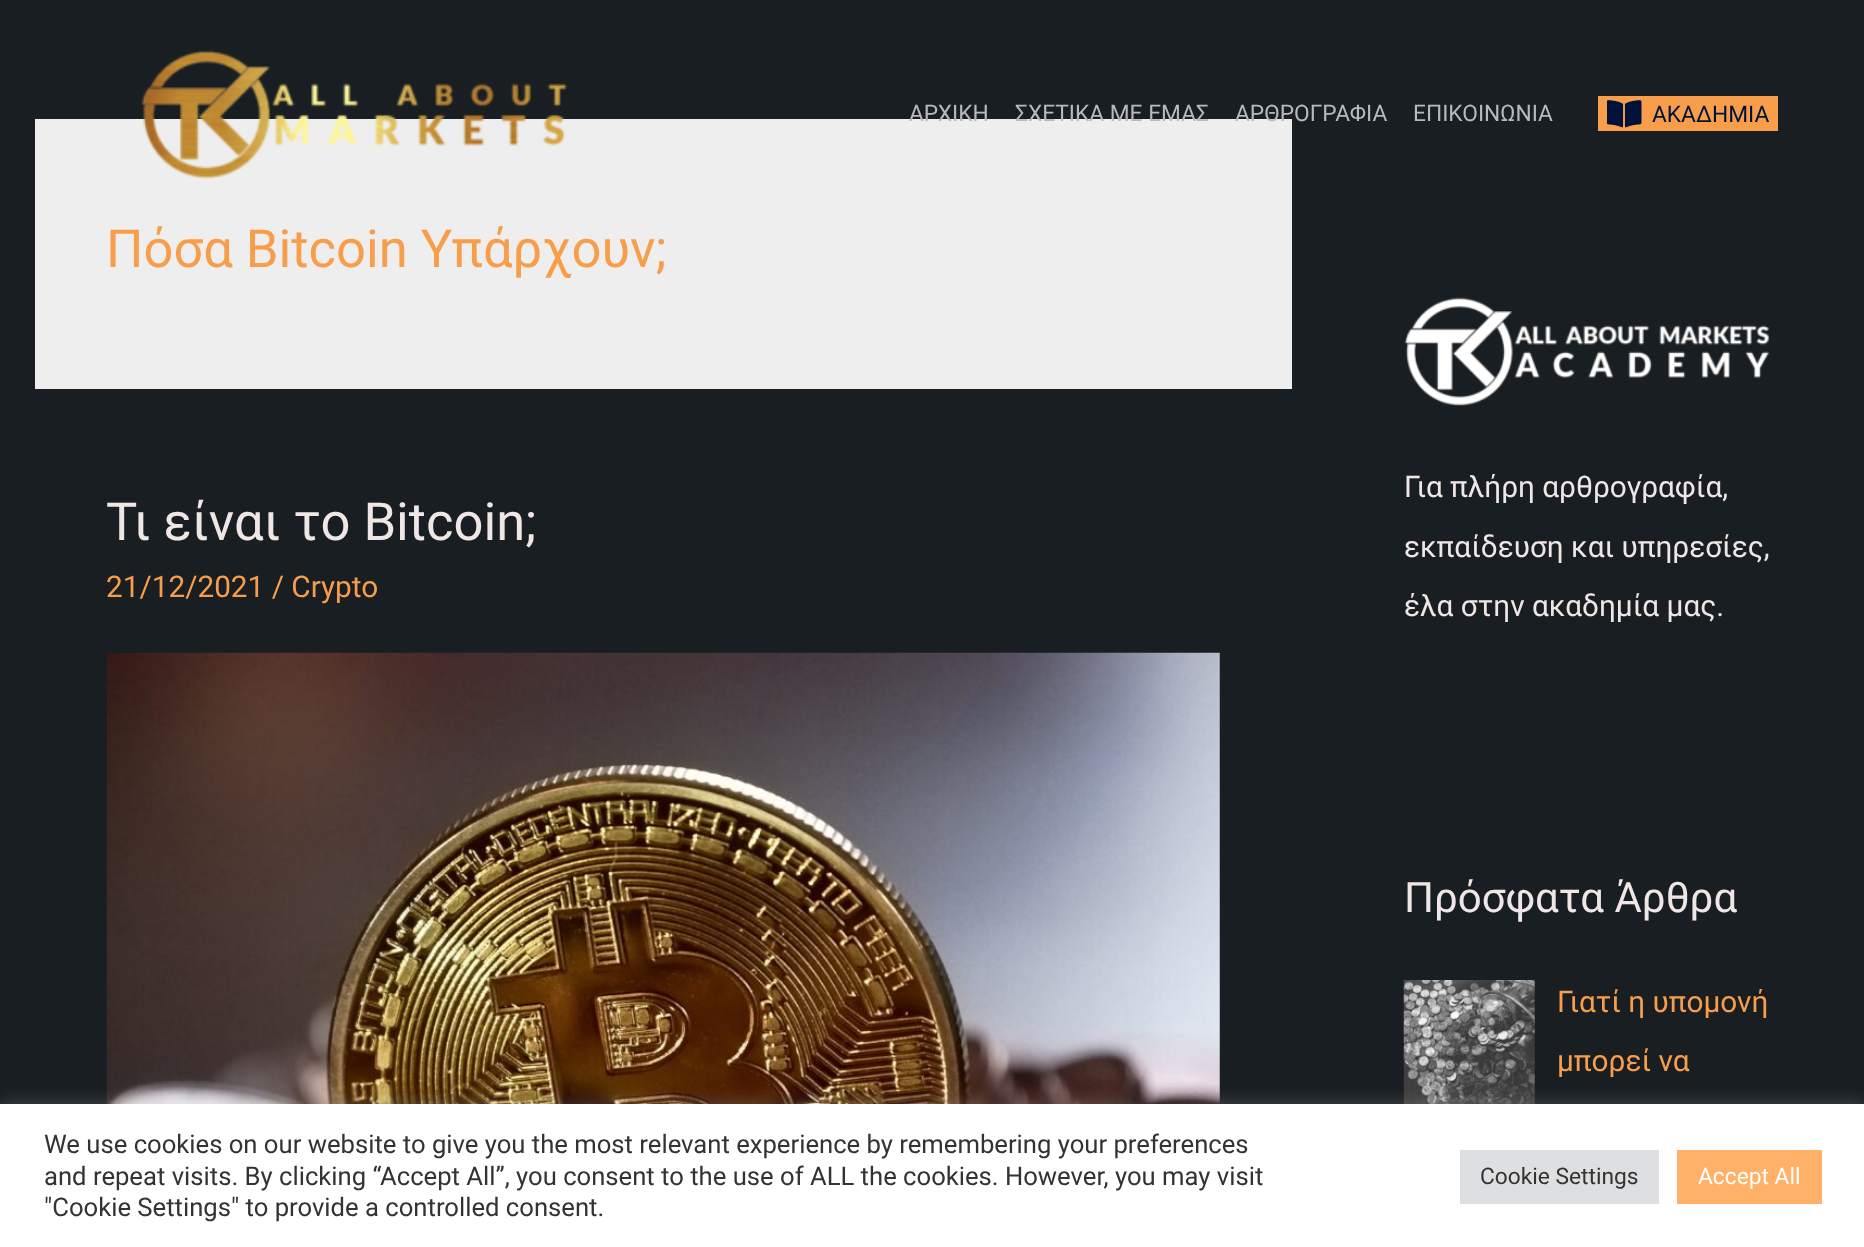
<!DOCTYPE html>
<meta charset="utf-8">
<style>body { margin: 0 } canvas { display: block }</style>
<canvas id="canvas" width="1864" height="1247"></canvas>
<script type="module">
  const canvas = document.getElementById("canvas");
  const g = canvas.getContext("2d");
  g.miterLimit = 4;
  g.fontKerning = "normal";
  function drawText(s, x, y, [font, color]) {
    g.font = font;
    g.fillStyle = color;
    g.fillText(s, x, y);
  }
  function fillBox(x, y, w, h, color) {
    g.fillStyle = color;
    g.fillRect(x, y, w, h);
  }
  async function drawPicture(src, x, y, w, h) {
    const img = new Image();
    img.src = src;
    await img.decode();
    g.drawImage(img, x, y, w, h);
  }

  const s1 = ["22.75px Roboto", "#B8B8BE"];
  const s2 = ["22.75px Roboto", "#00123A"];
  const s3 = ["52.5px Roboto", "#F89E4A"];
  const s4 = ["52.5px Roboto", "#EFE6E6"];
  const s5 = ["29.75px Roboto", "#F89E4A"];
  const s6 = ["29.75px Roboto", "#EFE6E6"];
  const s7 = ["42px Roboto", "#EFE6E6"];
  const s8 = ["25.65px Roboto", "#333333"];
  const s9 = ["22.75px Roboto", "#333333"];
  const s10 = ["22.75px Roboto", "#FFFFFF"];

  fillBox(0, 0, 1864, 1247, "#191E22");
  fillBox(35, 119, 1257, 270, "#EEEEEE");
  await drawPicture("pic1.png", 141, 50, 427, 129);
  drawText("ΑΡΧΙΚΗ", 909, 121, s1);
  drawText("ΣΧΕΤΙΚΑ ΜΕ ΕΜΑΣ", 1015, 121, s1);
  drawText("ΑΡΘΡΟΓΡΑΦΙΑ", 1235, 121, s1);
  drawText("ΕΠΙΚΟΙΝΩΝΙΑ", 1413, 121, s1);
  fillBox(1598, 96, 180, 35, "#F89E4A");
  await drawPicture("pic2.png", 1607, 100, 35, 28);
  drawText("ΑΚΑΔΗΜΙΑ", 1652, 122, s2);
  drawText("Πόσα Bitcoin Υπάρχουν;", 106, 267, s3);
  drawText("Τι είναι το Bitcoin;", 106, 540, s4);
  drawText("21/12/2021 / Crypto", 106, 597, s5);
  await drawPicture("pic3.png", 106, 652, 1114, 452);
  await drawPicture("pic4.png", 1404, 297, 366, 109);
  drawText("Για πλήρη αρθρογραφία,", 1404, 497, s6);
  drawText("εκπαίδευση και υπηρεσίες,", 1404, 557, s6);
  drawText("έλα στην ακαδημία μας.", 1404, 616, s6);
  drawText("Πρόσφατα Άρθρα", 1404, 912, s7);
  await drawPicture("pic5.png", 1403, 980, 132, 124);
  drawText("Γιατί η υπομονή", 1557, 1012, s5);
  drawText("μπορεί να", 1557, 1071, s5);
  g.fillStyle = "rgba(172, 171, 171, 0.3)";
  g.filter = "blur(9px)";
  g.beginPath();
  g.rect(0, 1103, 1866, 143);
  g.fill();
  g.filter = "none";
  fillBox(0, 1104, 1864, 143, "#FFFFFF");
  drawText("We use cookies on our website to give you the most relevant experience by remembering your preferences", 44, 1153, s8);
  drawText("and repeat visits. By clicking “Accept All”, you consent to the use of ALL the cookies. However, you may visit", 44, 1185, s8);
  drawText("\"Cookie Settings\" to provide a controlled consent.", 44, 1216, s8);
  fillBox(1460, 1150, 199, 54, "#DEDFE0");
  drawText("Cookie Settings", 1480, 1184, s9);
  fillBox(1677, 1150, 145, 54, "#FFB168");
  drawText("Accept All", 1698, 1184, s10);
</script>
